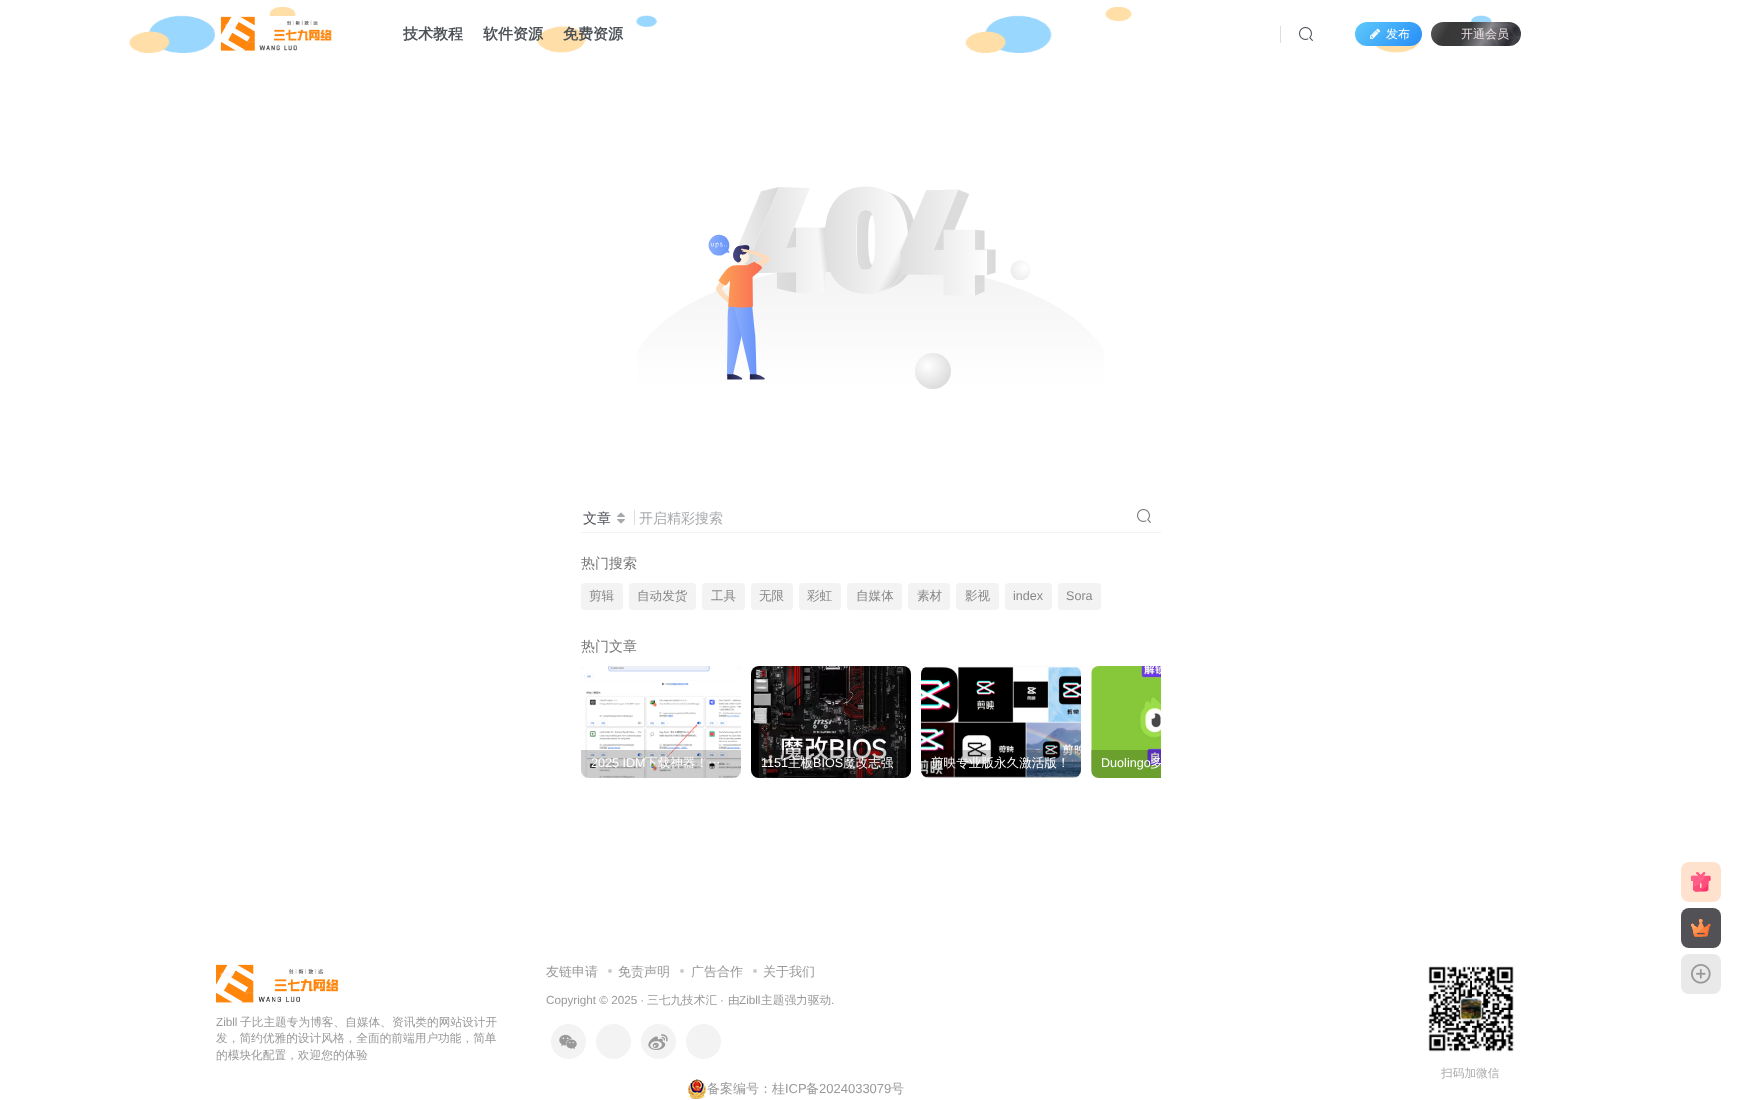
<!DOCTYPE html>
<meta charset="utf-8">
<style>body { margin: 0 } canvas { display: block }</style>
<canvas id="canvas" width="1741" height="1100"></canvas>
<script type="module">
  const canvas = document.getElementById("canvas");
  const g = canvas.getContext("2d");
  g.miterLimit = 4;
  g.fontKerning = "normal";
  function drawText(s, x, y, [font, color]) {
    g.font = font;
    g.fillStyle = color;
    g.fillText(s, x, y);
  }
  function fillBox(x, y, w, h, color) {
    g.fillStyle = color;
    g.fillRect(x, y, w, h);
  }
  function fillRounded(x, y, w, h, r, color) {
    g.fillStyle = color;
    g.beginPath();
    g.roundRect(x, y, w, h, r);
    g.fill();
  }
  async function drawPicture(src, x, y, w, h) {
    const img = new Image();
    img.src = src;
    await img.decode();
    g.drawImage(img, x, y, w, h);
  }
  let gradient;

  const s1 = ["bold 15px WenQuanYi Zen Hei", "#4E5358"];
  const s2 = ["500 12px WenQuanYi Zen Hei", "#FFFFFF"];
  const s3 = ["500 12px WenQuanYi Zen Hei", "#ECE0E0"];
  const s4 = ["500 14px WenQuanYi Zen Hei", "#4E5358"];
  const s5 = ["500 14px WenQuanYi Zen Hei", "#A7A9AC"];
  const s6 = ["500 14px WenQuanYi Zen Hei", "#777777"];
  const s7 = ["500 12.6px WenQuanYi Zen Hei", "#888888"];
  const s8 = ["12.6px Liberation Sans", "#888888"];
  const s9 = ["12.6px Liberation Sans", "#FFFFFF"];
  const s10 = ["500 12.6px WenQuanYi Zen Hei", "#FFFFFF"];
  const s11 = ["500 13px WenQuanYi Zen Hei", "#999999"];
  const s12 = ["11.7px Liberation Sans", "#999999"];
  const s13 = ["500 11.7px WenQuanYi Zen Hei", "#999999"];
  const s14 = ["500 11.7px WenQuanYi Zen Hei", "#ADADAD"];
  const s15 = ["13px Liberation Sans", "#999999"];

  fillBox(0, 0, 1741, 1100, "#FFFFFF");
  await drawPicture("pic1.png", 129, 7, 1363, 46);
  await drawPicture("pic2.png", 220, 16, 112, 35);
  drawText("技术教程", 403, 39, s1);
  drawText("软件资源", 483, 39, s1);
  drawText("免费资源", 563, 39, s1);
  fillBox(1280, 26, 1, 17, "#DCDDDE");
  await drawPicture("pic3.png", 1299, 27, 14, 14);
  gradient = g.createLinearGradient(1366, 11, 1411, 57);
  gradient.addColorStop(0.1, "#59C3FB");
  gradient.addColorStop(1, "#268DF7");
  g.fillStyle = gradient;
  g.beginPath();
  g.roundRect(1355, 22, 67, 24, 12);
  g.fill();
  await drawPicture("pic4.png", 1370, 28, 11, 11);
  drawText("发布", 1386, 38, s2);
  gradient = g.createLinearGradient(1515, 56, 1437, 12);
  gradient.addColorStop(0, "#4C4D51");
  gradient.addColorStop(0.15, "#2A2A31");
  gradient.addColorStop(0.4, "#85858A");
  gradient.addColorStop(0.6, "#393A3C");
  gradient.addColorStop(0.8, "#393838");
  gradient.addColorStop(1, "#5E5F62");
  g.fillStyle = gradient;
  g.beginPath();
  g.roundRect(1431, 22, 90, 24, 12);
  g.fill();
  fillBox(1443, 25, 1, 1, "#4E4745");
  drawText("开通会员", 1461, 38, s3);
  await drawPicture("pic5.png", 1481, 24, 40, 22);
  await drawPicture("pic6.png", 638, 186, 466, 203);
  drawText("文章", 583, 523, s4);
  await drawPicture("pic7.png", 617, 512, 8, 12);
  fillBox(634, 510, 1, 15, "#DCDDDE");
  drawText("开启精彩搜索", 639, 523, s5);
  await drawPicture("pic8.png", 1137, 509, 14, 14);
  fillBox(581, 532, 580, 1, "#F3F3F3");
  drawText("热门搜索", 581, 568, s6);
  fillRounded(581, 583, 42, 27, 4, "#F3F3F3");
  drawText("剪辑", 589, 600, s7);
  fillRounded(629, 583, 67, 27, 4, "#F3F3F3");
  drawText("自动发货", 637, 600, s7);
  fillRounded(702, 583, 43, 27, 4, "#F3F3F3");
  drawText("工具", 711, 600, s7);
  fillRounded(751, 583, 42, 27, 4, "#F3F3F3");
  drawText("无限", 759, 600, s7);
  fillRounded(799, 583, 42, 27, 4, "#F3F3F3");
  drawText("彩虹", 807, 600, s7);
  fillRounded(847, 583, 55, 27, 4, "#F3F3F3");
  drawText("自媒体", 856, 600, s7);
  fillRounded(908, 583, 42, 27, 4, "#F3F3F3");
  drawText("素材", 917, 600, s7);
  fillRounded(956, 583, 43, 27, 4, "#F3F3F3");
  drawText("影视", 965, 600, s7);
  fillRounded(1005, 583, 47, 27, 4, "#F3F3F3");
  drawText("index", 1013, 600, s8);
  fillRounded(1058, 583, 43, 27, 4, "#F3F3F3");
  drawText("Sora", 1066, 600, s8);
  drawText("热门文章", 581, 651, s6);
  g.save();
  g.beginPath();
  g.rect(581, 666, 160, 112);
  g.clip();
  g.fillStyle = "rgba(116, 116, 116, 0.08)";
  g.filter = "blur(5px)";
  g.beginPath();
  g.roundRect(581, 666, 160, 112, 8);
  g.fill();
  g.filter = "none";
  g.restore();
  await drawPicture("pic9.png", 581, 666, 160, 112);
  g.fillStyle = "rgba(0, 0, 0, 0.2)";
  g.beginPath();
  g.roundRect(581, 750, 160, 28, [0, 0, 8, 8]);
  g.fill();
  drawText("2025 IDM", 591, 767, s9);
  drawText("下载神器！…", 645, 767, s10);
  g.save();
  g.beginPath();
  g.rect(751, 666, 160, 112);
  g.clip();
  g.fillStyle = "rgba(116, 116, 116, 0.08)";
  g.filter = "blur(5px)";
  g.beginPath();
  g.roundRect(751, 666, 160, 112, 8);
  g.fill();
  g.filter = "none";
  g.restore();
  await drawPicture("pic10.png", 751, 666, 160, 112);
  g.fillStyle = "rgba(0, 0, 0, 0.2)";
  g.beginPath();
  g.roundRect(751, 750, 160, 28, [0, 0, 8, 8]);
  g.fill();
  drawText("1151", 761, 767, s9);
  drawText("主板", 788, 767, s10);
  drawText("BIOS", 813, 767, s9);
  drawText("魔改志强", 843, 767, s10);
  g.save();
  g.beginPath();
  g.rect(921, 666, 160, 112);
  g.clip();
  g.fillStyle = "rgba(116, 116, 116, 0.08)";
  g.filter = "blur(5px)";
  g.beginPath();
  g.roundRect(921, 666, 160, 112, 8);
  g.fill();
  g.filter = "none";
  g.restore();
  await drawPicture("pic11.png", 921, 667, 160, 111);
  g.fillStyle = "rgba(0, 0, 0, 0.2)";
  g.beginPath();
  g.roundRect(921, 750, 160, 28, [0, 0, 8, 8]);
  g.fill();
  drawText("剪映专业版永久激活版！", 931, 767, s10);
  g.save();
  g.beginPath();
  g.rect(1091, 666, 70, 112);
  g.clip();
  g.fillStyle = "rgba(116, 116, 116, 0.08)";
  g.filter = "blur(5px)";
  g.beginPath();
  g.roundRect(1091, 666, 160, 112, 8);
  g.fill();
  g.filter = "none";
  g.restore();
  await drawPicture("pic12.png", 1091, 666, 70, 112);
  g.fillStyle = "rgba(0, 0, 0, 0.2)";
  g.beginPath();
  g.roundRect(1091, 750, 70, 28, [0, 0, 0, 8]);
  g.fill();
  drawText("Duolingo", 1101, 767, s9);
  drawText("多", 1150, 767, s10);
  fillRounded(1681, 862, 40, 40, 8, "#FFE2CD");
  await drawPicture("pic13.png", 1691, 872, 20, 20);
  fillRounded(1681, 908, 40, 40, 8, "#515156");
  await drawPicture("pic14.png", 1691, 919, 20, 18);
  fillRounded(1681, 954, 40, 40, 8, "#E9E9E9");
  await drawPicture("pic15.png", 1691, 964, 20, 20);
  drawText("友链申请", 546, 976, s11);
  g.fillStyle = "#CACBCD";
  g.beginPath();
  g.arc(610, 971, 2, 0, Math.PI * 2);
  g.fill();
  drawText("免责声明", 618, 976, s11);
  g.fillStyle = "#CACBCD";
  g.beginPath();
  g.arc(682, 971, 2, 0, Math.PI * 2);
  g.fill();
  drawText("广告合作", 691, 976, s11);
  g.fillStyle = "#CACBCD";
  g.beginPath();
  g.arc(755, 971, 2, 0, Math.PI * 2);
  g.fill();
  drawText("关于我们", 763, 976, s11);
  drawText("Copyright © 2025 ·", 546, 1004, s12);
  drawText("三七九技术汇", 647, 1004, s13);
  drawText("·", 720, 1004, s12);
  drawText("由", 728, 1004, s13);
  drawText("Zibll", 739, 1004, s12);
  drawText("主题强力驱动", 761, 1004, s13);
  drawText(".", 831, 1004, s12);
  g.fillStyle = "#F3F3F3";
  g.beginPath();
  g.arc(568.5, 1041.5, 17.5, 0, Math.PI * 2);
  g.fill();
  await drawPicture("pic16.png", 559, 1034, 18, 15);
  g.beginPath();
  g.arc(613.5, 1041.5, 17.5, 0, Math.PI * 2);
  g.fill();
  g.beginPath();
  g.arc(658.5, 1041.5, 17.5, 0, Math.PI * 2);
  g.fill();
  await drawPicture("pic17.png", 648, 1034, 20, 16);
  g.beginPath();
  g.arc(703.5, 1041.5, 17.5, 0, Math.PI * 2);
  g.fill();
  await drawPicture("pic18.png", 216, 964, 123, 39);
  drawText("Zibll", 216, 1026, s12);
  drawText("子比主题专为博客、自媒体、资讯类的网站设计开", 240, 1026, s13);
  drawText("发，简约优雅的设计风格，全面的前端用户功能，简单", 216, 1042, s13);
  drawText("的模块化配置，欢迎您的体验", 216, 1059, s13);
  await drawPicture("pic19.png", 1428, 966, 86, 86);
  drawText("扫码加微信", 1441, 1077, s14);
  await drawPicture("pic20.png", 688, 1079, 18, 20);
  drawText("备案编号：桂", 707, 1093, s11);
  drawText("ICP", 785, 1093, s15);
  drawText("备", 806, 1093, s11);
  drawText("2024033079", 819, 1093, s15);
  drawText("号", 891, 1093, s11);
</script>
